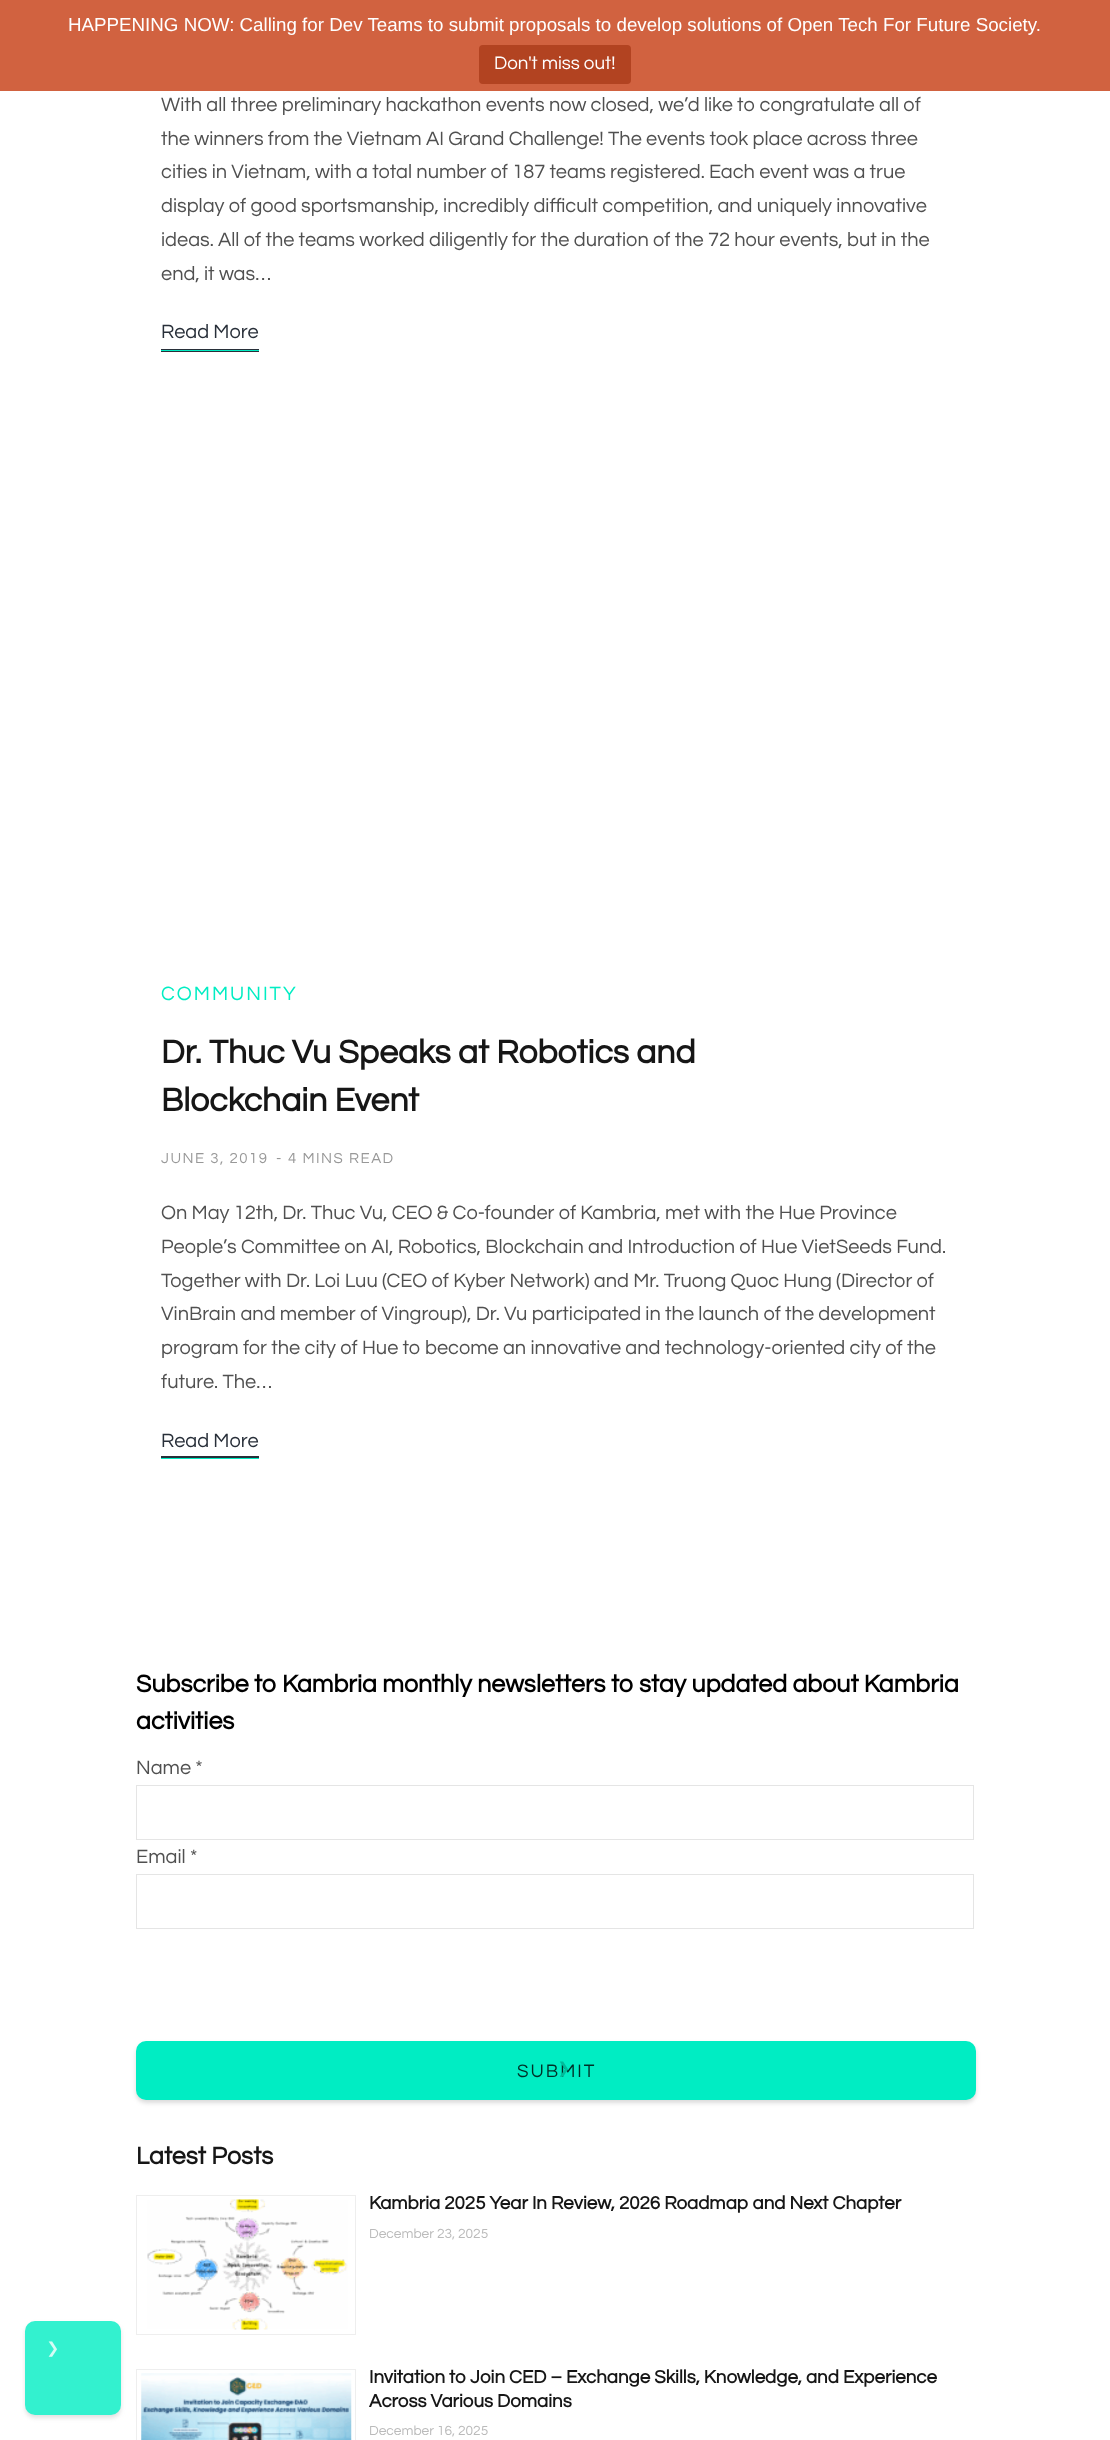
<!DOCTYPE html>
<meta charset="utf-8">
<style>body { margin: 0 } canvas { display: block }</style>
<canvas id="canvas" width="1110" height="2440"></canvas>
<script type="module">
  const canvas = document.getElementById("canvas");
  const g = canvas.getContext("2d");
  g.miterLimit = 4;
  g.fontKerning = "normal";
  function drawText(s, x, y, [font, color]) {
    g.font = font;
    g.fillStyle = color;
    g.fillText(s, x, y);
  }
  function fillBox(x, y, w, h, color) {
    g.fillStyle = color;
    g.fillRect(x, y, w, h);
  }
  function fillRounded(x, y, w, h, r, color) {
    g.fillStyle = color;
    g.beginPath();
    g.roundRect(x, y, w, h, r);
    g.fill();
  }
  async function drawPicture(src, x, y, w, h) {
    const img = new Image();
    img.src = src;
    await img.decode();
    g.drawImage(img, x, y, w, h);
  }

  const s1 = ["18.75px Liberation Sans", "#FFFFFF"];
  const s2 = ["18.75px Questrial", "#FFFFFF"];
  const s3 = ["38px Questrial", "#D6FCF5"];
  const s4 = ["20px Questrial", "#505050"];
  const s5 = ["20px Questrial", "#282F39"];
  const s6 = ["20px Questrial", "#00EDC3"];
  const s7 = ["bold 33.75px Questrial", "#161616"];
  const s8 = ["15px Questrial", "#989898"];
  const s9 = ["bold 25px Questrial", "#000000"];
  const s10 = ["18.75px Questrial", "#002F27"];
  const s11 = ["38px Questrial", "#00BC9A"];
  const s12 = ["bold 25px Questrial", "#161616"];
  const s13 = ["bold 18.75px Questrial", "#161616"];
  const s14 = ["13.75px Questrial", "#BBBBBB"];

  fillBox(0, 0, 1110, 2440, "#FFFFFF");
  fillBox(0, 0, 1110, 91, "#D16240");
  drawText("HAPPENING NOW: Calling for Dev Teams to submit proposals to develop solutions of Open Tech For Future Society.", 68, 31, s1);
  fillRounded(479, 45, 152, 39, 4, "#B24321");
  drawText("Don't miss out!", 494, 69, s2);
  g.fillStyle = "rgba(139, 139, 139, 0.25)";
  g.filter = "blur(2px)";
  g.beginPath();
  g.roundRect(25, 2324, 96, 94, 10);
  g.fill();
  g.filter = "none";
  fillRounded(25, 2321, 96, 94, 10, "#33F1CF");
  g.letterSpacing = "2px";
  drawText("›", 47, 2359, s3);
  g.letterSpacing = "0px";
  drawText("With all three preliminary hackathon events now closed, we’d like to congratulate all of", 161, 111, s4);
  drawText("the winners from the Vietnam AI Grand Challenge! The events took place across three", 161, 145, s4);
  drawText("cities in Vietnam, with a total number of 187 teams registered. Each event was a true", 161, 178, s4);
  drawText("display of good sportsmanship, incredibly difficult competition, and uniquely innovative", 161, 212, s4);
  drawText("ideas. All of the teams worked diligently for the duration of the 72 hour events, but in the", 161, 246, s4);
  drawText("end, it was…", 161, 280, s4);
  fillBox(161, 349, 98, 3, "#282F39");
  drawText("Read More", 161, 338, s5);
  fillBox(161, 350, 98, 1, "#00EDC3");
  g.letterSpacing = "2px";
  drawText("COMMUNITY", 161, 1000, s6);
  g.letterSpacing = "0px";
  drawText("Dr. Thuc Vu Speaks at Robotics and", 161, 1063, s7);
  drawText("Blockchain Event", 161, 1111, s7);
  g.letterSpacing = "1.5px";
  drawText("JUNE 3, 2019", 161, 1163, s8);
  g.letterSpacing = "0px";
  drawText("-", 276, 1163, s8);
  g.letterSpacing = "1.5px";
  drawText("4 MINS READ", 288, 1163, s8);
  g.letterSpacing = "0px";
  drawText("On May 12th, Dr. Thuc Vu, CEO & Co-founder of Kambria, met with the Hue Province", 161, 1219, s4);
  drawText("People’s Committee on AI, Robotics, Blockchain and Introduction of Hue VietSeeds Fund.", 161, 1253, s4);
  drawText("Together with Dr. Loi Luu (CEO of Kyber Network) and Mr. Truong Quoc Hung (Director of", 161, 1287, s4);
  drawText("VinBrain and member of Vingroup), Dr. Vu participated in the launch of the development", 161, 1320, s4);
  drawText("program for the city of Hue to become an innovative and technology-oriented city of the", 161, 1354, s4);
  drawText("future. The…", 161, 1388, s4);
  fillBox(161, 1456, 98, 2, "#282F39");
  drawText("Read More", 161, 1447, s5);
  fillBox(161, 1458, 98, 1, "#00EDC3");
  drawText("Subscribe to Kambria monthly newsletters to stay updated about Kambria", 136, 1692, s9);
  drawText("activities", 136, 1729, s9);
  drawText("Name *", 136, 1774, s4);
  g.strokeStyle = "#E5E5E5";
  g.strokeRect(136.5, 1785.5, 837, 54);
  drawText("Email *", 136, 1863, s4);
  g.strokeRect(136.5, 1874.5, 837, 54);
  g.fillStyle = "rgba(110, 110, 110, 0.25)";
  g.filter = "blur(2px)";
  g.beginPath();
  g.roundRect(136, 2044, 840, 59, 10);
  g.fill();
  g.filter = "none";
  fillRounded(136, 2041, 840, 59, 10, "#00EDC3");
  g.letterSpacing = "2px";
  drawText("SUBMIT", 517, 2077, s10);
  drawText("›", 558, 2079, s11);
  g.letterSpacing = "0px";
  drawText("Latest Posts", 136, 2164, s12);
  g.strokeStyle = "#EEEEEE";
  g.strokeRect(136.5, 2195.5, 219, 139);
  await drawPicture("pic1.png", 147, 2199, 201, 131);
  drawText("Kambria 2025 Year In Review, 2026 Roadmap and Next Chapter", 369, 2209, s13);
  drawText("December 23, 2025", 369, 2238, s14);
  g.strokeRect(136.5, 2369.5, 219, 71);
  await drawPicture("pic2.png", 141, 2373, 211, 67);
  drawText("Invitation to Join CED – Exchange Skills, Knowledge, and Experience", 369, 2383, s13);
  drawText("Across Various Domains", 369, 2407, s13);
  drawText("December 16, 2025", 369, 2435, s14);
</script>
